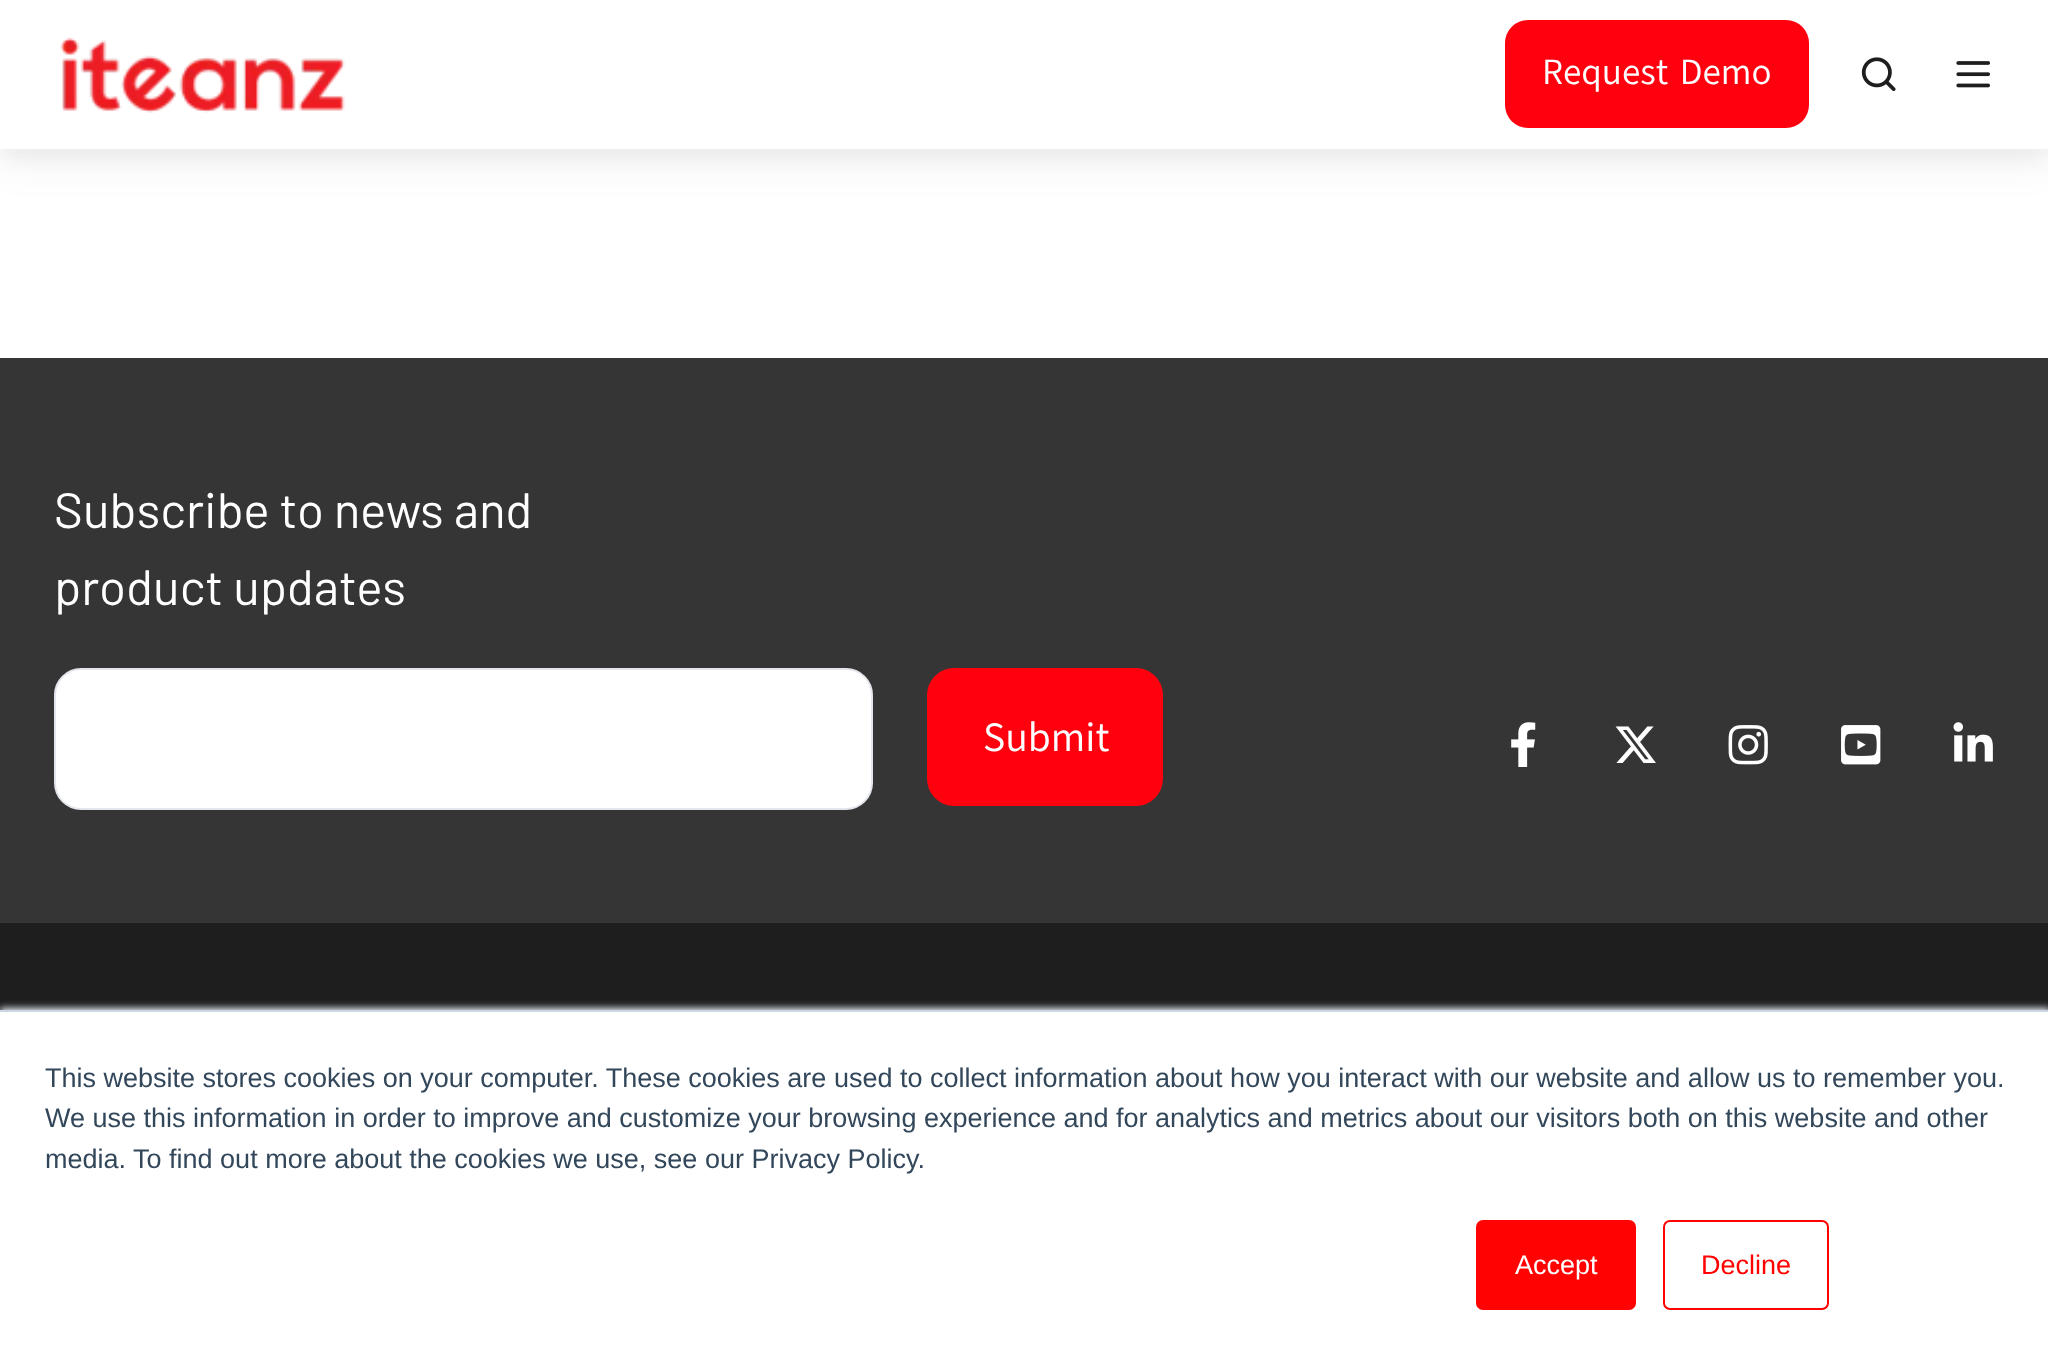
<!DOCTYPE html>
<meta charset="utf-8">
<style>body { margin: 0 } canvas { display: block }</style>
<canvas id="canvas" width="2048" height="1366"></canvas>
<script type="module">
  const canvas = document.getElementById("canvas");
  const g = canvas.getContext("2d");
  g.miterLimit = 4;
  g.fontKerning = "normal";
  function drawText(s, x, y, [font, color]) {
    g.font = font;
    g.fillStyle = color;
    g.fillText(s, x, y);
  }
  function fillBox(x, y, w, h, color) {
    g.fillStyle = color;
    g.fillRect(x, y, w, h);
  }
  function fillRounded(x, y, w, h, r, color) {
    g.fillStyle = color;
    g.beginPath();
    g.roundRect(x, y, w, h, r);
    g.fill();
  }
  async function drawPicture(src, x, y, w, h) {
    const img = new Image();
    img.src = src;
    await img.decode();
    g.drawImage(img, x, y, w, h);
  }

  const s1 = ["36px Akatab", "#FFFFFF"];
  const s2 = ["49.5px Barlow", "#FFFFFF"];
  const s3 = ["40.5px Akatab", "#FFFFFF"];
  const s4 = ["27px Liberation Sans", "#33475B"];
  const s5 = ["27px Liberation Sans", "#FFFFFF"];
  const s6 = ["27px Liberation Sans", "#FF0201"];

  fillBox(0, 0, 2048, 1366, "#FFFFFF");
  g.fillStyle = "rgba(30, 30, 30, 0.05)";
  g.filter = "blur(9px)";
  g.beginPath();
  g.rect(0, 9, 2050, 149);
  g.fill();
  g.filter = "none";
  g.filter = "blur(18px)";
  g.beginPath();
  g.rect(0, 18, 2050, 149);
  g.fill();
  g.filter = "none";
  fillBox(0, 0, 2048, 149, "#FFFFFF");
  await drawPicture("pic1.png", 60, 37, 285, 76);
  fillRounded(1505, 20, 304, 108, 23, "#FF010E");
  drawText("Request Demo", 1542, 84, s1);
  await drawPicture("pic2.png", 1861, 57, 35, 35);
  await drawPicture("pic3.png", 1956, 61, 34, 27);
  fillBox(0, 923, 2048, 87, "#1E1E1E");
  fillBox(0, 358, 2048, 565, "#353535");
  drawText("Subscribe to news and", 54, 528, s2);
  drawText("product updates", 54, 605, s2);
  g.beginPath();
  g.roundRect(55, 669, 817, 140, 26);
  g.fill();
  g.strokeStyle = "#E3E6EC";
  g.lineWidth = 2;
  g.stroke();
  fillRounded(927, 668, 236, 138, 27, "#FF010E");
  drawText("Submit", 983, 751, s3);
  await drawPicture("pic4.png", 1511, 722, 25, 45);
  await drawPicture("pic5.png", 1615, 726, 41, 37);
  await drawPicture("pic6.png", 1728, 725, 40, 40);
  await drawPicture("pic7.png", 1841, 725, 40, 40);
  await drawPicture("pic8.png", 1953, 722, 40, 40);
  g.fillStyle = "#EAF0F6";
  g.filter = "blur(3.5px)";
  g.beginPath();
  g.rect(0, 1008, 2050, 358);
  g.fill();
  g.filter = "none";
  fillBox(0, 1012, 2048, 354, "#FFFFFF");
  fillBox(0, 1010, 2048, 2, "#CBD6E2");
  drawText("This website stores cookies on your computer. These cookies are used to collect information about how you interact with our website and allow us to remember you.", 45, 1087, s4);
  drawText("We use this information in order to improve and customize your browsing experience and for analytics and metrics about our visitors both on this website and other", 45, 1127, s4);
  drawText("media. To find out more about the cookies we use, see our Privacy Policy.", 45, 1168, s4);
  g.fillStyle = "#FF0201";
  g.beginPath();
  g.roundRect(1477, 1221, 158, 88, 6);
  g.fill();
  g.strokeStyle = "#FF0201";
  g.stroke();
  drawText("Accept", 1515, 1274, s5);
  g.beginPath();
  g.roundRect(1664, 1221, 164, 88, 6);
  g.stroke();
  drawText("Decline", 1701, 1274, s6);
</script>
